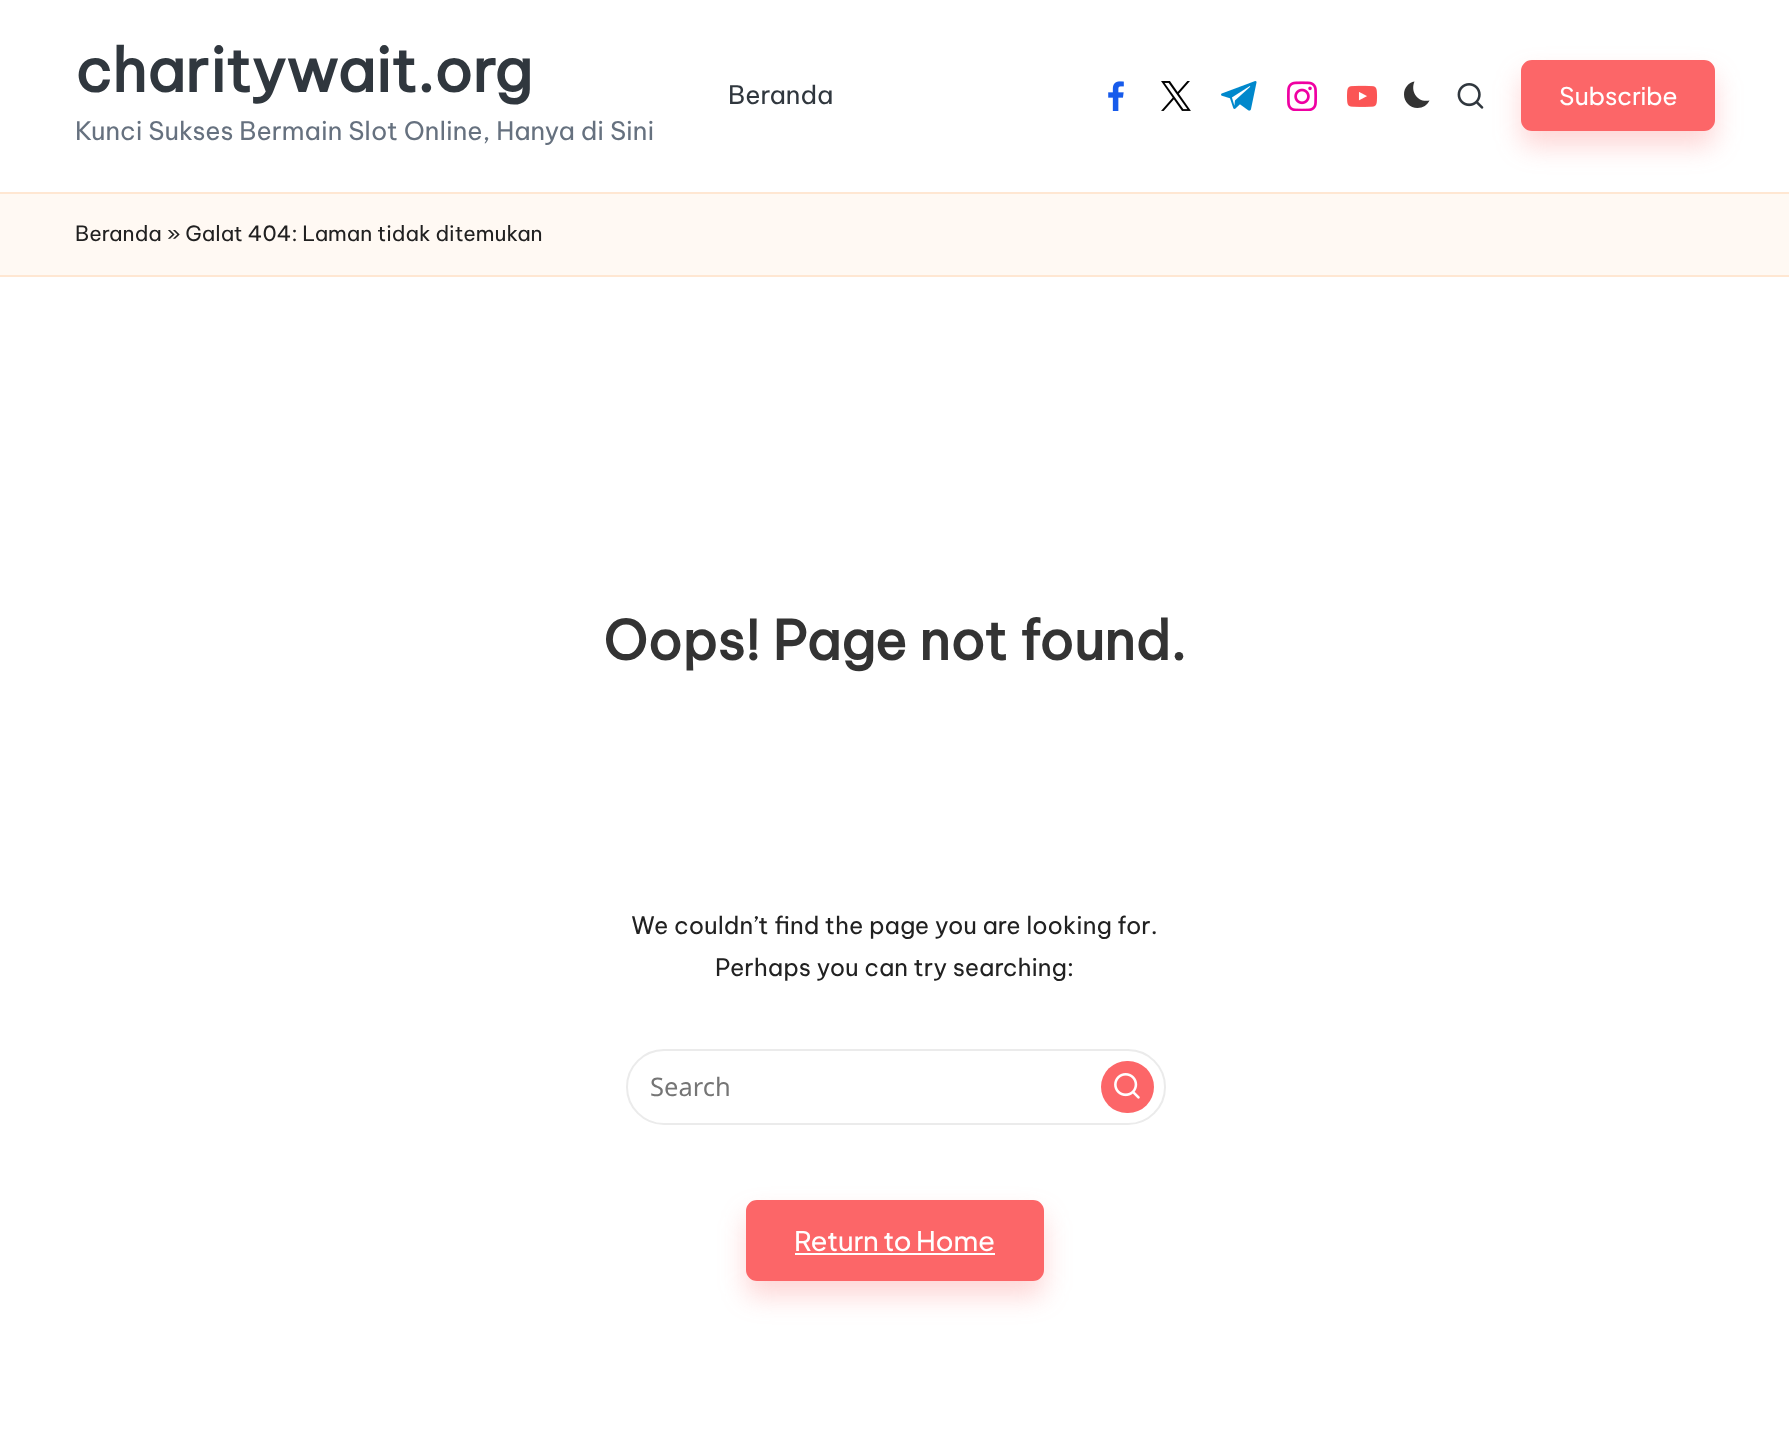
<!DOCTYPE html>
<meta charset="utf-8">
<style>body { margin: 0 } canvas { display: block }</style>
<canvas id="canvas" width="1789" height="1429"></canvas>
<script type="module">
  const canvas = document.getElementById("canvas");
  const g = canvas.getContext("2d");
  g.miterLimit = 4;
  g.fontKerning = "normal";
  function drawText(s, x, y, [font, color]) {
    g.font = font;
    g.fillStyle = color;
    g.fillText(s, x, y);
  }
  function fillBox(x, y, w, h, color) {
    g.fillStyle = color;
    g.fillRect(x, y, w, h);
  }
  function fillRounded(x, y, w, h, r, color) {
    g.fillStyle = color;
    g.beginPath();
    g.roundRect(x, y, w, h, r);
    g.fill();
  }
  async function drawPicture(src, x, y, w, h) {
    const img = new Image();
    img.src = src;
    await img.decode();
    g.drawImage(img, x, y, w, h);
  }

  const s1 = ["bold 60px Be Vietnam Pro", "#30373E"];
  const s2 = ["25.5px Be Vietnam Pro", "#66717F"];
  const s3 = ["25.5px Be Vietnam Pro", "#30373E"];
  const s4 = ["500 24.25px Plus Jakarta Sans", "#FFFFFF"];
  const s5 = ["21px Be Vietnam Pro", "#212121"];
  const s6 = ["bold 54px Be Vietnam Pro", "#333333"];
  const s7 = ["24px Be Vietnam Pro", "#212121"];
  const s8 = ["25.5px Noto Sans", "#757575"];
  const s9 = ["500 27px Plus Jakarta Sans", "#FFFFFF"];

  fillBox(0, 0, 1789, 1429, "#FFFFFF");
  drawText("charitywait.org", 75, 92, s1);
  drawText("Kunci Sukses Bermain Slot Online, Hanya di Sini", 75, 140, s2);
  drawText("Beranda", 728, 104, s3);
  await drawPicture("pic1.png", 1108, 81, 16, 30);
  await drawPicture("pic2.png", 1161, 81, 30, 30);
  await drawPicture("pic3.png", 1221, 81, 36, 30);
  await drawPicture("pic4.png", 1287, 81, 31, 30);
  await drawPicture("pic5.png", 1347, 85, 31, 22);
  g.fillStyle = "#333333";
  g.beginPath();
  g.moveTo(1429.5, 100.5);
  g.bezierCurveTo(1418, 103, 1410, 92, 1414.5, 81.5);
  g.bezierCurveTo(1408.5, 82.5, 1404, 88, 1404, 94.5);
  g.bezierCurveTo(1404, 102, 1410, 108, 1417.5, 108);
  g.bezierCurveTo(1423, 108, 1427.5, 105, 1429.5, 100.5);
  g.closePath();
  g.fill();
  await drawPicture("pic6.png", 1457, 83, 27, 26);
  g.fillStyle = "rgba(252, 102, 104, 0.27)";
  g.filter = "blur(13.5px)";
  g.beginPath();
  g.roundRect(1521, 75, 194, 71, 11);
  g.fill();
  g.filter = "none";
  g.fillStyle = "#FC6668";
  g.beginPath();
  g.roundRect(1522, 61, 192, 69, 10);
  g.fill();
  g.strokeStyle = "#FC6668";
  g.lineWidth = 2;
  g.stroke();
  drawText("Subscribe", 1559, 105, s4);
  fillBox(0, 194, 1789, 81, "#FFF9F3");
  fillBox(0, 192, 1789, 2, "#FFE7D2");
  fillBox(0, 275, 1789, 2, "#FFE7D2");
  drawText("Beranda", 75, 241, s5);
  drawText("» Galat 404: Laman tidak ditemukan", 167, 241, s5);
  drawText("Oops! Page not found.", 603, 660, s6);
  drawText("We couldn’t find the page you are looking for.", 631, 934, s7);
  drawText("Perhaps you can try searching:", 715, 976, s7);
  g.beginPath();
  g.roundRect(627, 1050, 538, 74, 37);
  g.strokeStyle = "#EBEBEB";
  g.stroke();
  drawText("Search", 650, 1096, s8);
  fillRounded(1101, 1061, 53, 52, 26, "#FC6668");
  await drawPicture("pic7.png", 1114, 1073, 26, 26);
  g.fillStyle = "rgba(252, 102, 104, 0.27)";
  g.filter = "blur(13.5px)";
  g.beginPath();
  g.roundRect(746, 1215, 298, 81, 11);
  g.fill();
  g.filter = "none";
  g.fillStyle = "#FC6668";
  g.beginPath();
  g.roundRect(747, 1201, 296, 79, 10);
  g.fill();
  g.strokeStyle = "#FC6668";
  g.stroke();
  drawText("Return to Home", 794, 1251, s9);
  fillBox(795, 1253, 200, 2, "#FFFFFF");
</script>
